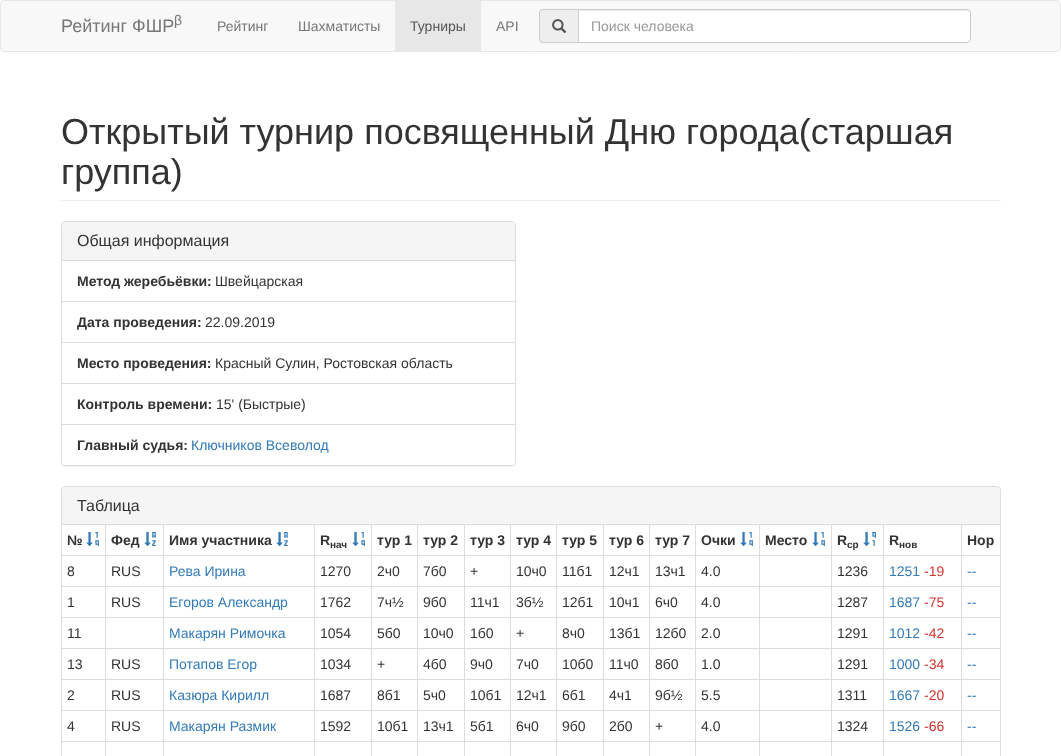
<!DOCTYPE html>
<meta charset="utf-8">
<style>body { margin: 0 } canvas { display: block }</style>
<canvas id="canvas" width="1061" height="756"></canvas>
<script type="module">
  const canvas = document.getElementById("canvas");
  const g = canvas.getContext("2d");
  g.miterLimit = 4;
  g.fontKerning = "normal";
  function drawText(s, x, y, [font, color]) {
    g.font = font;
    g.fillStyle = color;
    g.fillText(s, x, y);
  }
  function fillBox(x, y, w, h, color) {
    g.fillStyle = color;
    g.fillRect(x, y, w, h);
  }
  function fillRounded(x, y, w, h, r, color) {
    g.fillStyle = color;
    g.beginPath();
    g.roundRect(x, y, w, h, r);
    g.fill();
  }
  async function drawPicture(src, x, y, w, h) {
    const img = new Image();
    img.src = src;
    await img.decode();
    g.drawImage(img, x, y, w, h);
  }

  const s1 = ["18px Liberation Sans", "#777777"];
  const s2 = ["14px Liberation Sans", "#777777"];
  const s3 = ["14px Liberation Sans", "#555555"];
  const s4 = ["14px Liberation Sans", "#999999"];
  const s5 = ["36px Liberation Sans", "#333333"];
  const s6 = ["16px Liberation Sans", "#333333"];
  const s7 = ["bold 14px Liberation Sans", "#333333"];
  const s8 = ["14px Liberation Sans", "#333333"];
  const s9 = ["14px Liberation Sans", "#337AB7"];
  const s10 = ["bold 10px Liberation Sans", "#333333"];
  const s11 = ["14px Liberation Sans", "#D2322D"];

  fillBox(0, 0, 1061, 756, "#FFFFFF");
  g.fillStyle = "#F8F8F8";
  g.beginPath();
  g.roundRect(0.5, 0.5, 1060, 51, 3.5);
  g.fill();
  g.strokeStyle = "#E7E7E7";
  g.stroke();
  drawText("Рейтинг ФШР", 61, 32, s1);
  drawText("β", 174, 25, s2);
  drawText("Рейтинг", 217, 31, s2);
  drawText("Шахматисты", 298, 31, s2);
  fillBox(395, 1, 86, 50, "#E7E7E7");
  drawText("Турниры", 410, 31, s3);
  drawText("API", 496, 31, s2);
  g.fillStyle = "#EEEEEE";
  g.beginPath();
  g.roundRect(539, 9, 39, 34, [4, 0, 0, 4]);
  g.fill();
  g.fillStyle = "#CCCCCC";
  g.beginPath();
  g.moveTo(543, 9);
  g.lineTo(578, 9);
  g.lineTo(578, 43);
  g.lineTo(543, 43);
  g.bezierCurveTo(541, 43, 539, 41, 539, 39);
  g.lineTo(539, 13);
  g.bezierCurveTo(539, 11, 541, 9, 543, 9);
  g.closePath();
  g.moveTo(543, 10);
  g.lineTo(578, 10);
  g.lineTo(578, 42);
  g.lineTo(543, 42);
  g.bezierCurveTo(541.5, 42, 540, 40.5, 540, 39);
  g.lineTo(540, 13);
  g.bezierCurveTo(540, 11.5, 541.5, 10, 543, 10);
  g.closePath();
  g.fill("evenodd");
  await drawPicture("pic1.png", 552, 19, 15, 14);
  fillRounded(578, 9, 393, 34, 4, "#FFFFFF");
  g.fillStyle = "#ECECEC";
  g.beginPath();
  g.moveTo(579, 11);
  g.lineTo(967, 11);
  g.bezierCurveTo(969, 11, 970, 12, 970, 14);
  g.lineTo(970, 13);
  g.bezierCurveTo(970, 11, 969, 10, 967, 10);
  g.lineTo(579, 10);
  g.closePath();
  g.fill();
  g.beginPath();
  g.roundRect(578.5, 9.5, 392, 33, [0, 3.5, 3.5, 0]);
  g.strokeStyle = "#CCCCCC";
  g.stroke();
  drawText("Поиск человека", 591, 31, s4);
  fillBox(61, 200, 940, 1, "#EEEEEE");
  drawText("Открытый турнир посвященный Дню города(старшая", 61, 144, s5);
  drawText("группа)", 61, 184, s5);
  g.fillStyle = "rgba(0, 0, 0, 0.05)";
  g.filter = "blur(0.5px)";
  g.beginPath();
  g.roundRect(61, 222, 455, 245, 4);
  g.fill();
  g.filter = "none";
  g.fillStyle = "#FFFFFF";
  g.beginPath();
  g.roundRect(61.5, 221.5, 454, 244, 3.5);
  g.fill();
  g.strokeStyle = "#DDDDDD";
  g.stroke();
  g.fillStyle = "#F5F5F5";
  g.beginPath();
  g.roundRect(62, 222, 453, 39, [3, 3, 0, 0]);
  g.fill();
  fillBox(62, 260, 453, 1, "#DDDDDD");
  drawText("Общая информация", 77, 246, s6);
  fillBox(62, 301, 453, 1, "#DDDDDD");
  drawText("Метод жеребьёвки:", 77, 286, s7);
  drawText("Швейцарская", 215, 286, s8);
  fillBox(62, 342, 453, 1, "#DDDDDD");
  drawText("Дата проведения:", 77, 327, s7);
  drawText("22.09.2019", 205, 327, s8);
  fillBox(62, 383, 453, 1, "#DDDDDD");
  drawText("Место проведения:", 77, 368, s7);
  drawText("Красный Сулин, Ростовская область", 215, 368, s8);
  drawText("Контроль времени:", 77, 409, s7);
  drawText("15' (Быстрые)", 216, 409, s8);
  g.fillStyle = "#FFFFFF";
  g.beginPath();
  g.roundRect(62, 424, 453, 41, [0, 0, 3, 3]);
  g.fill();
  fillBox(62, 424, 453, 1, "#DDDDDD");
  drawText("Главный судья:", 77, 450, s7);
  drawText("Ключников Всеволод", 191, 450, s9);
  g.beginPath();
  g.roundRect(61.5, 486.5, 939, 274, 3.5);
  g.stroke();
  g.fillStyle = "#F5F5F5";
  g.beginPath();
  g.roundRect(62, 487, 938, 38, [3, 3, 0, 0]);
  g.fill();
  fillBox(62, 524, 938, 1, "#DDDDDD");
  drawText("Таблица", 77, 511, s6);
  drawText("№", 67, 545, s7);
  await drawPicture("pic2.png", 86, 532, 13, 14);
  fillBox(961, 555, 39, 1, "#DDDDDD");
  fillBox(961, 586, 39, 1, "#DDDDDD");
  fillBox(961, 617, 39, 1, "#DDDDDD");
  fillBox(961, 648, 39, 1, "#DDDDDD");
  fillBox(961, 679, 39, 1, "#DDDDDD");
  fillBox(961, 710, 39, 1, "#DDDDDD");
  fillBox(961, 741, 39, 1, "#DDDDDD");
  fillBox(961, 741, 1, 15, "#DDDDDD");
  fillBox(883, 741, 79, 1, "#DDDDDD");
  fillBox(961, 710, 1, 32, "#DDDDDD");
  fillBox(883, 710, 79, 1, "#DDDDDD");
  fillBox(961, 679, 1, 32, "#DDDDDD");
  fillBox(883, 679, 79, 1, "#DDDDDD");
  fillBox(961, 648, 1, 32, "#DDDDDD");
  fillBox(883, 648, 79, 1, "#DDDDDD");
  fillBox(961, 617, 1, 32, "#DDDDDD");
  fillBox(883, 617, 79, 1, "#DDDDDD");
  fillBox(961, 586, 1, 32, "#DDDDDD");
  fillBox(883, 586, 79, 1, "#DDDDDD");
  fillBox(961, 555, 1, 32, "#DDDDDD");
  fillBox(883, 555, 79, 1, "#DDDDDD");
  fillBox(883, 741, 1, 15, "#DDDDDD");
  fillBox(831, 741, 53, 1, "#DDDDDD");
  fillBox(883, 710, 1, 32, "#DDDDDD");
  fillBox(831, 710, 53, 1, "#DDDDDD");
  fillBox(883, 679, 1, 32, "#DDDDDD");
  fillBox(831, 679, 53, 1, "#DDDDDD");
  fillBox(883, 648, 1, 32, "#DDDDDD");
  fillBox(831, 648, 53, 1, "#DDDDDD");
  fillBox(883, 617, 1, 32, "#DDDDDD");
  fillBox(831, 617, 53, 1, "#DDDDDD");
  fillBox(883, 586, 1, 32, "#DDDDDD");
  fillBox(831, 586, 53, 1, "#DDDDDD");
  fillBox(883, 555, 1, 32, "#DDDDDD");
  fillBox(831, 555, 53, 1, "#DDDDDD");
  fillBox(831, 741, 1, 15, "#DDDDDD");
  fillBox(759, 741, 73, 1, "#DDDDDD");
  fillBox(831, 710, 1, 32, "#DDDDDD");
  fillBox(759, 710, 73, 1, "#DDDDDD");
  fillBox(831, 679, 1, 32, "#DDDDDD");
  fillBox(759, 679, 73, 1, "#DDDDDD");
  fillBox(831, 648, 1, 32, "#DDDDDD");
  fillBox(759, 648, 73, 1, "#DDDDDD");
  fillBox(831, 617, 1, 32, "#DDDDDD");
  fillBox(759, 617, 73, 1, "#DDDDDD");
  fillBox(831, 586, 1, 32, "#DDDDDD");
  fillBox(759, 586, 73, 1, "#DDDDDD");
  fillBox(831, 555, 1, 32, "#DDDDDD");
  fillBox(759, 555, 73, 1, "#DDDDDD");
  fillBox(759, 741, 1, 15, "#DDDDDD");
  fillBox(695, 741, 65, 1, "#DDDDDD");
  fillBox(759, 710, 1, 32, "#DDDDDD");
  fillBox(695, 710, 65, 1, "#DDDDDD");
  fillBox(759, 679, 1, 32, "#DDDDDD");
  fillBox(695, 679, 65, 1, "#DDDDDD");
  fillBox(759, 648, 1, 32, "#DDDDDD");
  fillBox(695, 648, 65, 1, "#DDDDDD");
  fillBox(759, 617, 1, 32, "#DDDDDD");
  fillBox(695, 617, 65, 1, "#DDDDDD");
  fillBox(759, 586, 1, 32, "#DDDDDD");
  fillBox(695, 586, 65, 1, "#DDDDDD");
  fillBox(759, 555, 1, 32, "#DDDDDD");
  fillBox(695, 555, 65, 1, "#DDDDDD");
  fillBox(695, 741, 1, 15, "#DDDDDD");
  fillBox(649, 741, 47, 1, "#DDDDDD");
  fillBox(695, 710, 1, 32, "#DDDDDD");
  fillBox(649, 710, 47, 1, "#DDDDDD");
  fillBox(695, 679, 1, 32, "#DDDDDD");
  fillBox(649, 679, 47, 1, "#DDDDDD");
  fillBox(695, 648, 1, 32, "#DDDDDD");
  fillBox(649, 648, 47, 1, "#DDDDDD");
  fillBox(695, 617, 1, 32, "#DDDDDD");
  fillBox(649, 617, 47, 1, "#DDDDDD");
  fillBox(695, 586, 1, 32, "#DDDDDD");
  fillBox(649, 586, 47, 1, "#DDDDDD");
  fillBox(695, 555, 1, 32, "#DDDDDD");
  fillBox(649, 555, 47, 1, "#DDDDDD");
  fillBox(649, 741, 1, 15, "#DDDDDD");
  fillBox(603, 741, 47, 1, "#DDDDDD");
  fillBox(649, 710, 1, 32, "#DDDDDD");
  fillBox(603, 710, 47, 1, "#DDDDDD");
  fillBox(649, 679, 1, 32, "#DDDDDD");
  fillBox(603, 679, 47, 1, "#DDDDDD");
  fillBox(649, 648, 1, 32, "#DDDDDD");
  fillBox(603, 648, 47, 1, "#DDDDDD");
  fillBox(649, 617, 1, 32, "#DDDDDD");
  fillBox(603, 617, 47, 1, "#DDDDDD");
  fillBox(649, 586, 1, 32, "#DDDDDD");
  fillBox(603, 586, 47, 1, "#DDDDDD");
  fillBox(649, 555, 1, 32, "#DDDDDD");
  fillBox(603, 555, 47, 1, "#DDDDDD");
  fillBox(603, 741, 1, 15, "#DDDDDD");
  fillBox(556, 741, 48, 1, "#DDDDDD");
  fillBox(603, 710, 1, 32, "#DDDDDD");
  fillBox(556, 710, 48, 1, "#DDDDDD");
  fillBox(603, 679, 1, 32, "#DDDDDD");
  fillBox(556, 679, 48, 1, "#DDDDDD");
  fillBox(603, 648, 1, 32, "#DDDDDD");
  fillBox(556, 648, 48, 1, "#DDDDDD");
  fillBox(603, 617, 1, 32, "#DDDDDD");
  fillBox(556, 617, 48, 1, "#DDDDDD");
  fillBox(603, 586, 1, 32, "#DDDDDD");
  fillBox(556, 586, 48, 1, "#DDDDDD");
  fillBox(603, 555, 1, 32, "#DDDDDD");
  fillBox(556, 555, 48, 1, "#DDDDDD");
  fillBox(556, 741, 1, 15, "#DDDDDD");
  fillBox(510, 741, 47, 1, "#DDDDDD");
  fillBox(556, 710, 1, 32, "#DDDDDD");
  fillBox(510, 710, 47, 1, "#DDDDDD");
  fillBox(556, 679, 1, 32, "#DDDDDD");
  fillBox(510, 679, 47, 1, "#DDDDDD");
  fillBox(556, 648, 1, 32, "#DDDDDD");
  fillBox(510, 648, 47, 1, "#DDDDDD");
  fillBox(556, 617, 1, 32, "#DDDDDD");
  fillBox(510, 617, 47, 1, "#DDDDDD");
  fillBox(556, 586, 1, 32, "#DDDDDD");
  fillBox(510, 586, 47, 1, "#DDDDDD");
  fillBox(556, 555, 1, 32, "#DDDDDD");
  fillBox(510, 555, 47, 1, "#DDDDDD");
  fillBox(510, 741, 1, 15, "#DDDDDD");
  fillBox(464, 741, 47, 1, "#DDDDDD");
  fillBox(510, 710, 1, 32, "#DDDDDD");
  fillBox(464, 710, 47, 1, "#DDDDDD");
  fillBox(510, 679, 1, 32, "#DDDDDD");
  fillBox(464, 679, 47, 1, "#DDDDDD");
  fillBox(510, 648, 1, 32, "#DDDDDD");
  fillBox(464, 648, 47, 1, "#DDDDDD");
  fillBox(510, 617, 1, 32, "#DDDDDD");
  fillBox(464, 617, 47, 1, "#DDDDDD");
  fillBox(510, 586, 1, 32, "#DDDDDD");
  fillBox(464, 586, 47, 1, "#DDDDDD");
  fillBox(510, 555, 1, 32, "#DDDDDD");
  fillBox(464, 555, 47, 1, "#DDDDDD");
  fillBox(464, 741, 1, 15, "#DDDDDD");
  fillBox(417, 741, 48, 1, "#DDDDDD");
  fillBox(464, 710, 1, 32, "#DDDDDD");
  fillBox(417, 710, 48, 1, "#DDDDDD");
  fillBox(464, 679, 1, 32, "#DDDDDD");
  fillBox(417, 679, 48, 1, "#DDDDDD");
  fillBox(464, 648, 1, 32, "#DDDDDD");
  fillBox(417, 648, 48, 1, "#DDDDDD");
  fillBox(464, 617, 1, 32, "#DDDDDD");
  fillBox(417, 617, 48, 1, "#DDDDDD");
  fillBox(464, 586, 1, 32, "#DDDDDD");
  fillBox(417, 586, 48, 1, "#DDDDDD");
  fillBox(464, 555, 1, 32, "#DDDDDD");
  fillBox(417, 555, 48, 1, "#DDDDDD");
  fillBox(417, 741, 1, 15, "#DDDDDD");
  fillBox(371, 741, 47, 1, "#DDDDDD");
  fillBox(417, 710, 1, 32, "#DDDDDD");
  fillBox(371, 710, 47, 1, "#DDDDDD");
  fillBox(417, 679, 1, 32, "#DDDDDD");
  fillBox(371, 679, 47, 1, "#DDDDDD");
  fillBox(417, 648, 1, 32, "#DDDDDD");
  fillBox(371, 648, 47, 1, "#DDDDDD");
  fillBox(417, 617, 1, 32, "#DDDDDD");
  fillBox(371, 617, 47, 1, "#DDDDDD");
  fillBox(417, 586, 1, 32, "#DDDDDD");
  fillBox(371, 586, 47, 1, "#DDDDDD");
  fillBox(417, 555, 1, 32, "#DDDDDD");
  fillBox(371, 555, 47, 1, "#DDDDDD");
  fillBox(371, 741, 1, 15, "#DDDDDD");
  fillBox(314, 741, 58, 1, "#DDDDDD");
  fillBox(371, 710, 1, 32, "#DDDDDD");
  fillBox(314, 710, 58, 1, "#DDDDDD");
  fillBox(371, 679, 1, 32, "#DDDDDD");
  fillBox(314, 679, 58, 1, "#DDDDDD");
  fillBox(371, 648, 1, 32, "#DDDDDD");
  fillBox(314, 648, 58, 1, "#DDDDDD");
  fillBox(371, 617, 1, 32, "#DDDDDD");
  fillBox(314, 617, 58, 1, "#DDDDDD");
  fillBox(371, 586, 1, 32, "#DDDDDD");
  fillBox(314, 586, 58, 1, "#DDDDDD");
  fillBox(371, 555, 1, 32, "#DDDDDD");
  fillBox(314, 555, 58, 1, "#DDDDDD");
  fillBox(314, 741, 1, 15, "#DDDDDD");
  fillBox(163, 741, 152, 1, "#DDDDDD");
  fillBox(314, 710, 1, 32, "#DDDDDD");
  fillBox(163, 710, 152, 1, "#DDDDDD");
  fillBox(314, 679, 1, 32, "#DDDDDD");
  fillBox(163, 679, 152, 1, "#DDDDDD");
  fillBox(314, 648, 1, 32, "#DDDDDD");
  fillBox(163, 648, 152, 1, "#DDDDDD");
  fillBox(314, 617, 1, 32, "#DDDDDD");
  fillBox(163, 617, 152, 1, "#DDDDDD");
  fillBox(314, 586, 1, 32, "#DDDDDD");
  fillBox(163, 586, 152, 1, "#DDDDDD");
  fillBox(314, 555, 1, 32, "#DDDDDD");
  fillBox(163, 555, 152, 1, "#DDDDDD");
  fillBox(163, 741, 1, 15, "#DDDDDD");
  fillBox(105, 741, 59, 1, "#DDDDDD");
  fillBox(163, 710, 1, 32, "#DDDDDD");
  fillBox(105, 710, 59, 1, "#DDDDDD");
  fillBox(163, 679, 1, 32, "#DDDDDD");
  fillBox(105, 679, 59, 1, "#DDDDDD");
  fillBox(163, 648, 1, 32, "#DDDDDD");
  fillBox(105, 648, 59, 1, "#DDDDDD");
  fillBox(163, 617, 1, 32, "#DDDDDD");
  fillBox(105, 617, 59, 1, "#DDDDDD");
  fillBox(163, 586, 1, 32, "#DDDDDD");
  fillBox(105, 586, 59, 1, "#DDDDDD");
  fillBox(163, 555, 1, 32, "#DDDDDD");
  fillBox(105, 555, 59, 1, "#DDDDDD");
  fillBox(105, 741, 1, 15, "#DDDDDD");
  fillBox(61, 741, 45, 1, "#DDDDDD");
  fillBox(105, 710, 1, 32, "#DDDDDD");
  fillBox(61, 710, 45, 1, "#DDDDDD");
  fillBox(105, 679, 1, 32, "#DDDDDD");
  fillBox(61, 679, 45, 1, "#DDDDDD");
  fillBox(105, 648, 1, 32, "#DDDDDD");
  fillBox(61, 648, 45, 1, "#DDDDDD");
  fillBox(105, 617, 1, 32, "#DDDDDD");
  fillBox(61, 617, 45, 1, "#DDDDDD");
  fillBox(105, 586, 1, 32, "#DDDDDD");
  fillBox(61, 586, 45, 1, "#DDDDDD");
  fillBox(105, 555, 1, 32, "#DDDDDD");
  fillBox(61, 555, 45, 1, "#DDDDDD");
  fillBox(105, 525, 1, 31, "#DDDDDD");
  drawText("Фед", 111, 545, s7);
  await drawPicture("pic3.png", 144, 532, 12, 14);
  fillBox(163, 525, 1, 31, "#DDDDDD");
  drawText("Имя участника", 169, 545, s7);
  await drawPicture("pic3.png", 276, 532, 12, 14);
  fillBox(314, 525, 1, 31, "#DDDDDD");
  drawText("R", 320, 545, s7);
  drawText("нач", 330, 548, s10);
  await drawPicture("pic2.png", 352, 532, 13, 14);
  fillBox(371, 525, 1, 31, "#DDDDDD");
  drawText("тур 1", 377, 545, s7);
  fillBox(417, 525, 1, 31, "#DDDDDD");
  drawText("тур 2", 423, 545, s7);
  fillBox(464, 525, 1, 31, "#DDDDDD");
  drawText("тур 3", 470, 545, s7);
  fillBox(510, 525, 1, 31, "#DDDDDD");
  drawText("тур 4", 516, 545, s7);
  fillBox(556, 525, 1, 31, "#DDDDDD");
  drawText("тур 5", 562, 545, s7);
  fillBox(603, 525, 1, 31, "#DDDDDD");
  drawText("тур 6", 609, 545, s7);
  fillBox(649, 525, 1, 31, "#DDDDDD");
  drawText("тур 7", 655, 545, s7);
  fillBox(695, 525, 1, 31, "#DDDDDD");
  drawText("Очки", 701, 545, s7);
  await drawPicture("pic2.png", 740, 532, 13, 14);
  fillBox(759, 525, 1, 31, "#DDDDDD");
  drawText("Место", 765, 545, s7);
  await drawPicture("pic2.png", 812, 532, 13, 14);
  fillBox(831, 525, 1, 31, "#DDDDDD");
  drawText("R", 837, 545, s7);
  await drawPicture("pic4.png", 863, 532, 13, 14);
  drawText("ср", 847, 548, s10);
  fillBox(883, 525, 1, 31, "#DDDDDD");
  drawText("R", 889, 545, s7);
  drawText("нов", 899, 548, s10);
  fillBox(961, 525, 1, 31, "#DDDDDD");
  drawText("Нор", 967, 545, s7);
  drawText("8", 67, 576, s8);
  drawText("RUS", 111, 576, s8);
  drawText("Рева Ирина", 169, 576, s9);
  drawText("1270", 320, 576, s8);
  drawText("2ч0", 377, 576, s8);
  drawText("7б0", 423, 576, s8);
  drawText("+", 470, 576, s8);
  drawText("10ч0", 516, 576, s8);
  drawText("11б1", 562, 576, s8);
  drawText("12ч1", 609, 576, s8);
  drawText("13ч1", 655, 576, s8);
  drawText("4.0", 701, 576, s8);
  drawText("1236", 837, 576, s8);
  drawText("1251", 889, 576, s9);
  drawText("-19", 924, 576, s11);
  drawText("--", 967, 576, s9);
  drawText("1", 67, 607, s8);
  drawText("RUS", 111, 607, s8);
  drawText("Егоров Александр", 169, 607, s9);
  drawText("1762", 320, 607, s8);
  drawText("7ч½", 377, 607, s8);
  drawText("9б0", 423, 607, s8);
  drawText("11ч1", 470, 607, s8);
  drawText("3б½", 516, 607, s8);
  drawText("12б1", 562, 607, s8);
  drawText("10ч1", 609, 607, s8);
  drawText("6ч0", 655, 607, s8);
  drawText("4.0", 701, 607, s8);
  drawText("1287", 837, 607, s8);
  drawText("1687", 889, 607, s9);
  drawText("-75", 924, 607, s11);
  drawText("--", 967, 607, s9);
  drawText("11", 67, 638, s8);
  drawText("Макарян Римочка", 169, 638, s9);
  drawText("1054", 320, 638, s8);
  drawText("5б0", 377, 638, s8);
  drawText("10ч0", 423, 638, s8);
  drawText("1б0", 470, 638, s8);
  drawText("+", 516, 638, s8);
  drawText("8ч0", 562, 638, s8);
  drawText("13б1", 609, 638, s8);
  drawText("12б0", 655, 638, s8);
  drawText("2.0", 701, 638, s8);
  drawText("1291", 837, 638, s8);
  drawText("1012", 889, 638, s9);
  drawText("-42", 924, 638, s11);
  drawText("--", 967, 638, s9);
  drawText("13", 67, 669, s8);
  drawText("RUS", 111, 669, s8);
  drawText("Потапов Егор", 169, 669, s9);
  drawText("1034", 320, 669, s8);
  drawText("+", 377, 669, s8);
  drawText("4б0", 423, 669, s8);
  drawText("9ч0", 470, 669, s8);
  drawText("7ч0", 516, 669, s8);
  drawText("10б0", 562, 669, s8);
  drawText("11ч0", 609, 669, s8);
  drawText("8б0", 655, 669, s8);
  drawText("1.0", 701, 669, s8);
  drawText("1291", 837, 669, s8);
  drawText("1000", 889, 669, s9);
  drawText("-34", 924, 669, s11);
  drawText("--", 967, 669, s9);
  drawText("2", 67, 700, s8);
  drawText("RUS", 111, 700, s8);
  drawText("Казюра Кирилл", 169, 700, s9);
  drawText("1687", 320, 700, s8);
  drawText("8б1", 377, 700, s8);
  drawText("5ч0", 423, 700, s8);
  drawText("10б1", 470, 700, s8);
  drawText("12ч1", 516, 700, s8);
  drawText("6б1", 562, 700, s8);
  drawText("4ч1", 609, 700, s8);
  drawText("9б½", 655, 700, s8);
  drawText("5.5", 701, 700, s8);
  drawText("1311", 837, 700, s8);
  drawText("1667", 889, 700, s9);
  drawText("-20", 924, 700, s11);
  drawText("--", 967, 700, s9);
  drawText("4", 67, 731, s8);
  drawText("RUS", 111, 731, s8);
  drawText("Макарян Размик", 169, 731, s9);
  drawText("1592", 320, 731, s8);
  drawText("10б1", 377, 731, s8);
  drawText("13ч1", 423, 731, s8);
  drawText("5б1", 470, 731, s8);
  drawText("6ч0", 516, 731, s8);
  drawText("9б0", 562, 731, s8);
  drawText("2б0", 609, 731, s8);
  drawText("+", 655, 731, s8);
  drawText("4.0", 701, 731, s8);
  drawText("1324", 837, 731, s8);
  drawText("1526", 889, 731, s9);
  drawText("-66", 924, 731, s11);
  drawText("--", 967, 731, s9);
</script>
